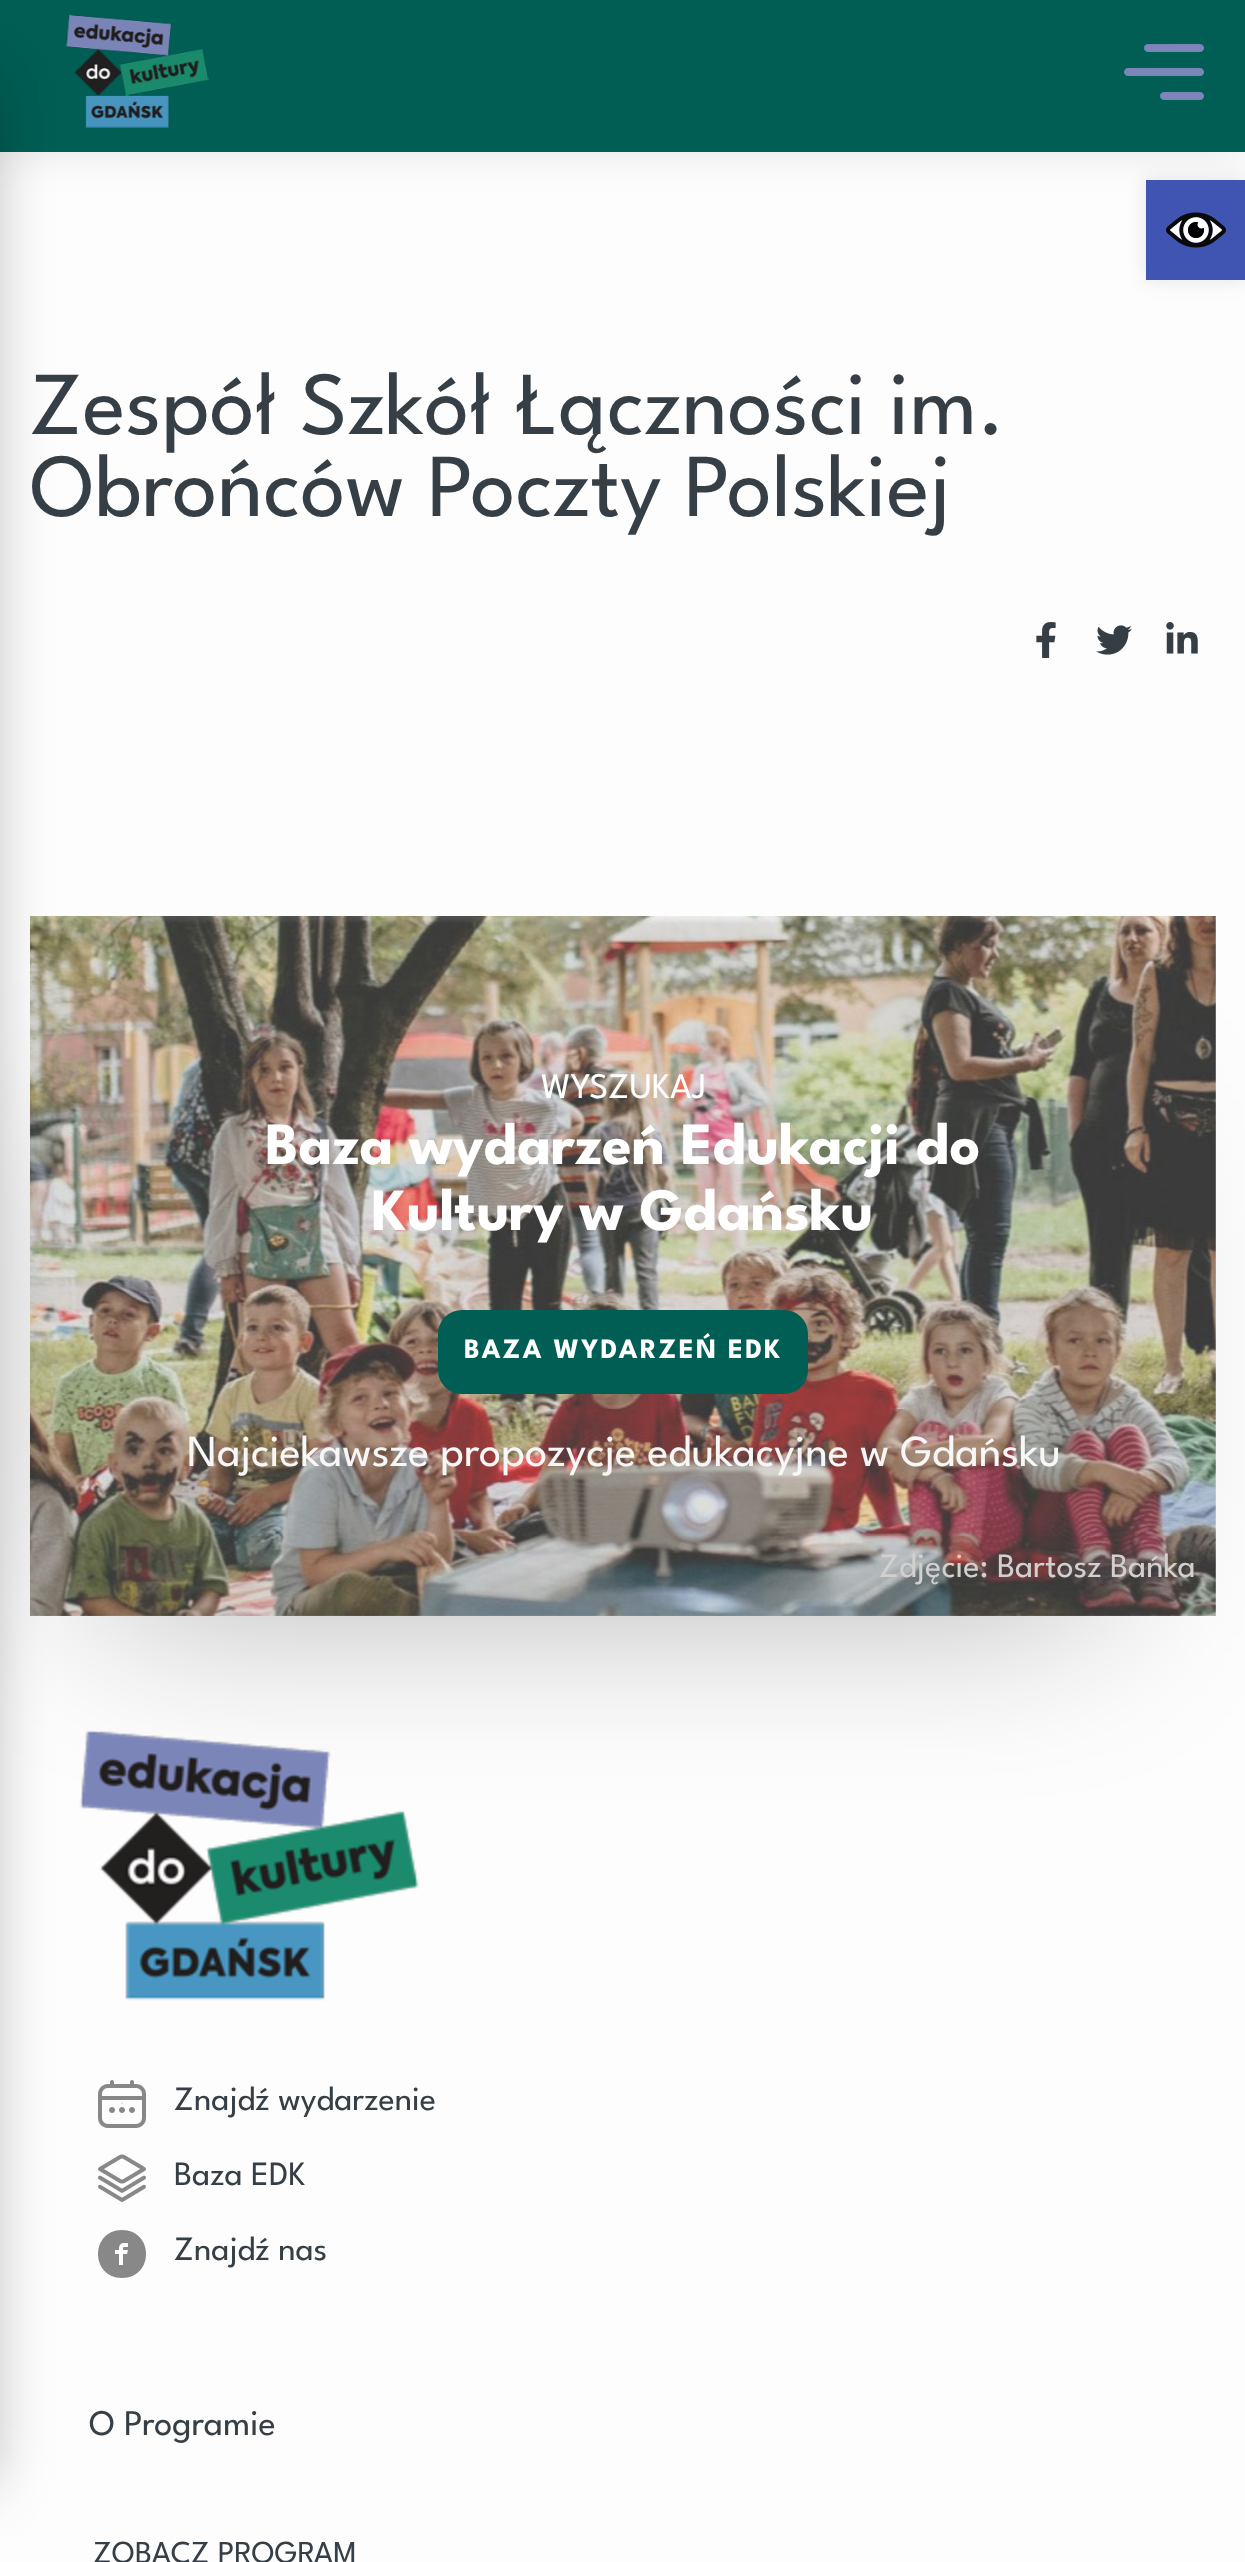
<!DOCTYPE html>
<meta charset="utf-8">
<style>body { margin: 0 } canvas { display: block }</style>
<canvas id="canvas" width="1245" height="2562"></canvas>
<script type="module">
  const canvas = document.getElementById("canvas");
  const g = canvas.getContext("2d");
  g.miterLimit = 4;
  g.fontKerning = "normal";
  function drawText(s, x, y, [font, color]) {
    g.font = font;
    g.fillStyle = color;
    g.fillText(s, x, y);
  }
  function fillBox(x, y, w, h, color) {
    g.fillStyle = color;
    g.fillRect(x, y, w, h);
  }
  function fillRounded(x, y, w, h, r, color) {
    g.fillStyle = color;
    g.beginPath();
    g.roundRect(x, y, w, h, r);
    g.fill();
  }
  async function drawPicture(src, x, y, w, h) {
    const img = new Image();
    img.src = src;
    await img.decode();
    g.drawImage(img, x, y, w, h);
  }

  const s1 = ["89.75px League Spartan", "#363E46"];
  const s2 = ["36px League Spartan", "#FFFFFF"];
  const s3 = ["bold 60px League Spartan", "#FFFFFF"];
  const s4 = ["bold 28px League Spartan", "#FFFFFF"];
  const s5 = ["44.25px League Spartan", "#F7F7F7"];
  const s6 = ["34px League Spartan", "#D2CFCF"];
  const s7 = ["34px League Spartan", "#363E46"];
  const s8 = ["36px League Spartan", "#363E46"];
  const s9 = ["32px League Spartan", "#363E46"];

  fillBox(0, 0, 1245, 2562, "#FDFDFD");
  g.fillStyle = "rgba(0, 0, 0, 0.1)";
  g.filter = "blur(20px)";
  g.beginPath();
  g.rect(0, 0, 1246, 152);
  g.fill();
  g.filter = "none";
  fillBox(0, 0, 1245, 152, "#005E54");
  await drawPicture("pic1.png", 66, 14, 143, 114);
  await drawPicture("pic2.png", 1124, 44, 80, 56);
  g.fillStyle = "rgba(0, 0, 0, 0.3)";
  g.filter = "blur(90px)";
  g.beginPath();
  g.rect(102, 1130, 996, 476);
  g.fill();
  g.filter = "none";
  await drawPicture("pic7.png", 30, 916, 1186, 700);
  await drawPicture("pic8.png", 79, 1730, 340, 271);
  g.filter = "blur(30px)";
  g.beginPath();
  g.rect(-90, 80, 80, 2402);
  g.fill();
  g.filter = "none";
  g.fillStyle = "rgba(0, 0, 0, 0.1)";
  g.filter = "blur(10px)";
  g.beginPath();
  g.rect(1146, 180, 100, 100);
  g.fill();
  g.filter = "none";
  fillBox(1146, 180, 99, 100, "#4054B2");
  await drawPicture("pic3.png", 1166, 212, 60, 36);
  drawText("Zespół Szkół Łączności im.", 30, 434, s1);
  drawText("Obrońców Poczty Polskiej", 30, 516, s1);
  await drawPicture("pic4.png", 1036, 622, 20, 36);
  await drawPicture("pic5.png", 1096, 625, 36, 30);
  await drawPicture("pic6.png", 1166, 622, 32, 32);
  drawText("WYSZUKAJ", 541, 1098, s2);
  drawText("Baza wydarzeń Edukacji do", 265, 1164, s3);
  drawText("Kultury w Gdańsku", 372, 1230, s3);
  fillRounded(438, 1310, 370, 84, 24, "#005E54");
  g.letterSpacing = "2.25px";
  drawText("BAZA WYDARZEŃ EDK", 464, 1358, s4);
  g.letterSpacing = "0px";
  drawText("Najciekawsze propozycje edukacyjne w Gdańsku", 187, 1466, s5);
  drawText("Zdjęcie: Bartosz Bańka", 879, 1577, s6);
  await drawPicture("pic9.png", 98, 2080, 48, 48);
  drawText("Znajdź wydarzenie", 174, 2110, s7);
  await drawPicture("pic10.png", 98, 2154, 48, 48);
  drawText("Baza EDK", 174, 2185, s7);
  drawText("Znajdź nas", 174, 2260, s7);
  g.fillStyle = "#888888";
  g.beginPath();
  g.moveTo(122, 2230);
  g.bezierCurveTo(90, 2230, 90, 2278, 122, 2278);
  g.bezierCurveTo(154, 2278, 154, 2230, 122, 2230);
  g.closePath();
  g.moveTo(128, 2247);
  g.bezierCurveTo(123, 2247, 123, 2246, 123, 2250);
  g.lineTo(128, 2250);
  g.lineTo(127, 2254);
  g.lineTo(123, 2254);
  g.lineTo(123, 2265);
  g.lineTo(119, 2265);
  g.lineTo(119, 2254);
  g.lineTo(115, 2254);
  g.lineTo(115, 2250);
  g.lineTo(119, 2250);
  g.bezierCurveTo(119, 2243, 121, 2243, 128, 2243);
  g.closePath();
  g.fill();
  drawText("O Programie", 89, 2435, s8);
  drawText("ZOBACZ PROGRAM", 93, 2563, s9);
</script>
